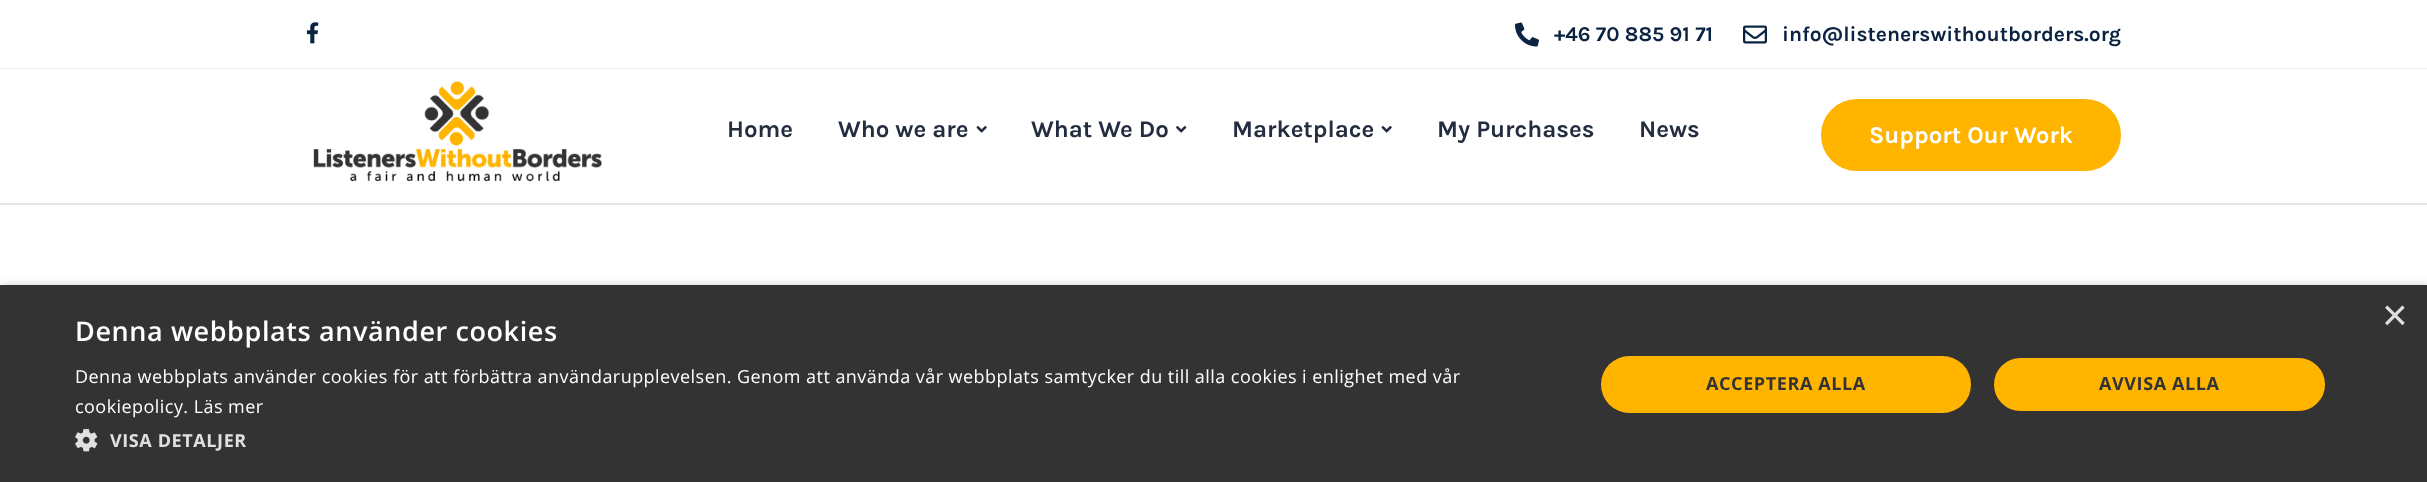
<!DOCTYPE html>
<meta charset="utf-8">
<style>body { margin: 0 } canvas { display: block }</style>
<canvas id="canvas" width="2427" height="482"></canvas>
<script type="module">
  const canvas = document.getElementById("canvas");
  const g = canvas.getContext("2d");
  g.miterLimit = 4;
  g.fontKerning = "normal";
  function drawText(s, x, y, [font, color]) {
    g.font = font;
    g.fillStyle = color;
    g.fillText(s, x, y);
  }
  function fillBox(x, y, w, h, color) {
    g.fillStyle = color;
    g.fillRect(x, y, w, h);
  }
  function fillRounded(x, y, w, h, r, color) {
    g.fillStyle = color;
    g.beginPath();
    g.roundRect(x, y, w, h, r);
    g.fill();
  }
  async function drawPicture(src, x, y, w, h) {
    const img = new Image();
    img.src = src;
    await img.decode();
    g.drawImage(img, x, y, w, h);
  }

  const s1 = ["bold 21px Karla", "#0B2341"];
  const s2 = ["bold 24px Karla", "#242D3F"];
  const s3 = ["bold 24px Karla", "#FFFFFF"];
  const s4 = ["44px Liberation Sans", "#E0E0E0"];
  const s5 = ["600 27px Open Sans", "#FFFFFF"];
  const s6 = ["18px Open Sans", "#FFFFFF"];
  const s7 = ["bold 18px Open Sans", "#E0E0E0"];
  const s8 = ["bold 18px Open Sans", "#333333"];

  fillBox(0, 0, 2427, 482, "#FFFFFF");
  fillBox(0, 203, 2427, 2, "rgba(0, 0, 0, 0.1)");
  fillBox(0, 68, 2427, 1, "#EDEDED");
  await drawPicture("pic1.png", 306, 22, 13, 22);
  await drawPicture("pic2.png", 1515, 22, 24, 25);
  drawText("+46 70 885 91 71", 1554, 41, s1);
  await drawPicture("pic3.png", 1743, 25, 24, 19);
  drawText("info@listenerswithoutborders.org", 1782, 41, s1);
  await drawPicture("pic4.png", 313, 81, 289, 101);
  drawText("Home", 727, 137, s2);
  drawText("Who we are", 838, 137, s2);
  await drawPicture("pic5.png", 976, 126, 11, 7);
  drawText("What We Do", 1031, 137, s2);
  await drawPicture("pic6.png", 1176, 126, 11, 7);
  drawText("Marketplace", 1232, 137, s2);
  await drawPicture("pic5.png", 1381, 126, 11, 7);
  drawText("My Purchases", 1437, 137, s2);
  drawText("News", 1639, 137, s2);
  g.fillStyle = "#FFB400";
  g.beginPath();
  g.roundRect(1822.5, 100.5, 297, 69, 34.5);
  g.fill();
  g.strokeStyle = "#FFB400";
  g.lineWidth = 3;
  g.stroke();
  drawText("Support Our Work", 1869, 143, s3);
  g.fillStyle = "rgba(0, 0, 0, 0.35)";
  g.filter = "blur(6px)";
  g.beginPath();
  g.rect(2, 288, 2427, 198);
  g.fill();
  g.filter = "none";
  fillBox(0, 285, 2427, 197, "#333333");
  drawText("×", 2382, 330, s4);
  g.letterSpacing = "0.6px";
  drawText("Denna webbplats använder cookies", 75, 341, s5);
  g.letterSpacing = "0.45px";
  drawText("Denna webbplats använder cookies för att förbättra användarupplevelsen. Genom att använda vår webbplats samtycker du till alla cookies i enlighet med vår", 75, 383, s6);
  drawText("cookiepolicy. Läs mer", 75, 413, s6);
  await drawPicture("pic7.png", 75, 429, 23, 23);
  g.letterSpacing = "0.6px";
  drawText("VISA DETALJER", 110, 447, s7);
  fillRounded(1601, 356, 370, 57, 28.5, "#FFB400");
  drawText("ACCEPTERA ALLA", 1706, 390, s8);
  g.fillStyle = "#FFB400";
  g.beginPath();
  g.roundRect(1993, 357, 333, 55, 27.5);
  g.fill();
  g.strokeStyle = "#333333";
  g.lineWidth = 2;
  g.stroke();
  drawText("AVVISA ALLA", 2099, 390, s8);
</script>
